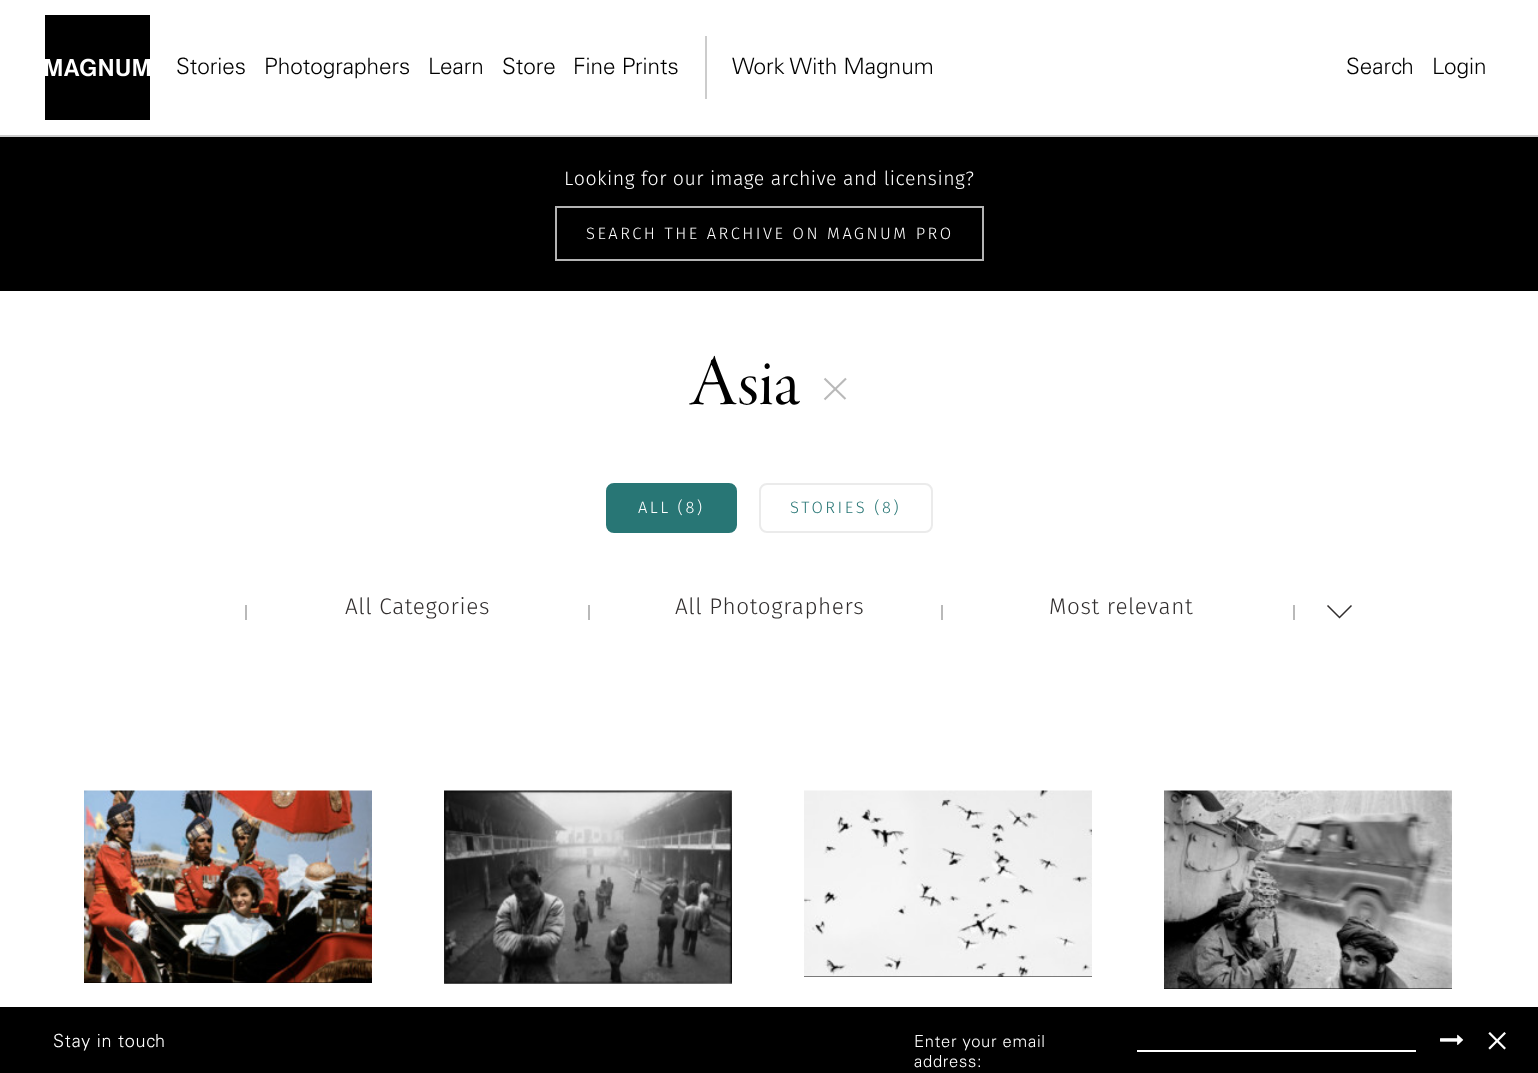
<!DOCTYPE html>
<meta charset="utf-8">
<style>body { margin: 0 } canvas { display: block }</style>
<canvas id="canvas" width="1538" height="1073"></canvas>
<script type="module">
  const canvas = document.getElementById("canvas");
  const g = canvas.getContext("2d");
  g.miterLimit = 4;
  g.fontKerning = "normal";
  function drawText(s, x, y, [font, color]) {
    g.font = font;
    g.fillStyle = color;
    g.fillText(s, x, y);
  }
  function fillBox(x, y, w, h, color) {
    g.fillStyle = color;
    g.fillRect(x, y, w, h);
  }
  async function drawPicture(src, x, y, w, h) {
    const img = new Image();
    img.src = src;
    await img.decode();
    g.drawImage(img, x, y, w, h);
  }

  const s1 = ["300 22.5px Univers", "#000000"];
  const s2 = ["300 19.5px Fira Sans", "#FFFFFF"];
  const s3 = ["300 16.5px Fira Sans", "#FFFFFF"];
  const s4 = ["75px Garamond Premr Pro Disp", "#000000"];
  const s5 = ["300 16.5px Fira Sans", "#287675"];
  const s6 = ["300 22.5px Fira Sans", "#302D2D"];
  const s7 = ["300 18px Univers", "#FFFFFF"];
  const s8 = ["300 16.5px Univers", "#FFFFFF"];
  const s9 = ["43px Liberation Serif", "#FFFFFF"];

  fillBox(0, 0, 1538, 1073, "#FFFFFF");
  fillBox(0, 135, 1538, 2, "#CCCCCC");
  await drawPicture("pic1.png", 45, 15, 105, 105);
  drawText("Stories", 176, 74, s1);
  drawText("Photographers", 264, 74, s1);
  drawText("Learn", 428, 74, s1);
  drawText("Store", 502, 74, s1);
  drawText("Fine Prints", 573, 74, s1);
  fillBox(705, 36, 2, 63, "#CCCCCC");
  drawText("Work With Magnum", 732, 74, s1);
  drawText("Search", 1346, 74, s1);
  drawText("Login", 1432, 74, s1);
  fillBox(0, 137, 1538, 154, "#000000");
  g.letterSpacing = "0.5px";
  drawText("Looking for our image archive and licensing?", 564, 185, s2);
  g.strokeStyle = "#B3B3B3";
  g.lineWidth = 2;
  g.strokeRect(556, 207, 427, 53);
  g.letterSpacing = "2.5px";
  drawText("SEARCH THE ARCHIVE ON MAGNUM PRO", 586, 239, s3);
  g.letterSpacing = "0px";
  drawText("Asia", 689, 404, s4);
  g.save();
  g.beginPath();
  g.moveTo(835, 367.5);
  g.lineTo(856, 388.5);
  g.lineTo(835, 409.5);
  g.lineTo(814, 388.5);
  g.closePath();
  g.clip();
  g.beginPath();
  g.moveTo(824.5, 378.5);
  g.lineTo(846, 399.5);
  g.strokeStyle = "#B9B9B9";
  g.lineWidth = 2.1;
  g.stroke();
  g.restore();
  g.beginPath();
  g.moveTo(846, 378.5);
  g.lineTo(824.5, 399.5);
  g.strokeStyle = "#B9B9B9";
  g.lineWidth = 2.1;
  g.stroke();
  g.fillStyle = "#287675";
  g.beginPath();
  g.roundRect(607, 484, 129, 48, 7);
  g.fill();
  g.strokeStyle = "#287675";
  g.lineWidth = 2;
  g.stroke();
  g.letterSpacing = "2.5px";
  drawText("ALL (8)", 638, 513, s3);
  g.beginPath();
  g.roundRect(760, 484, 172, 48, 7);
  g.strokeStyle = "#EBEBEB";
  g.stroke();
  drawText("STORIES (8)", 790, 513, s5);
  fillBox(245, 605, 2, 15, "#B9B9B9");
  g.letterSpacing = "0.6px";
  drawText("All Categories", 345, 614, s6);
  fillBox(588, 605, 2, 15, "#B9B9B9");
  drawText("All Photographers", 675, 614, s6);
  fillBox(941, 605, 2, 15, "#B9B9B9");
  drawText("Most relevant", 1049, 614, s6);
  fillBox(1293, 605, 2, 15, "#B9B9B9");
  g.beginPath();
  g.moveTo(1351.5, 605.5);
  g.lineTo(1339.5, 617.5);
  g.lineTo(1327.5, 605.5);
  g.strokeStyle = "#302D2D";
  g.lineWidth = 1.5;
  g.stroke();
  fillBox(84, 982, 288, 1, "#000000");
  await drawPicture("pic2.png", 84, 790, 288, 193);
  await drawPicture("pic3.png", 444, 790, 288, 194);
  fillBox(804, 976, 288, 1, "#000000");
  await drawPicture("pic4.png", 804, 790, 288, 187);
  fillBox(1164, 988, 288, 1, "#000000");
  await drawPicture("pic5.png", 1164, 790, 288, 199);
  fillBox(0, 1007, 1538, 66, "#000000");
  g.letterSpacing = "0.75px";
  drawText("Stay in touch", 53, 1047, s7);
  drawText("Enter your email", 914, 1047, s8);
  drawText("address:", 914, 1067, s8);
  fillBox(1137, 1050, 279, 2, "#FFFFFF");
  await drawPicture("pic6.png", 1440, 1034, 24, 11);
  g.letterSpacing = "0px";
  drawText("×", 1485, 1055, s9);
</script>
